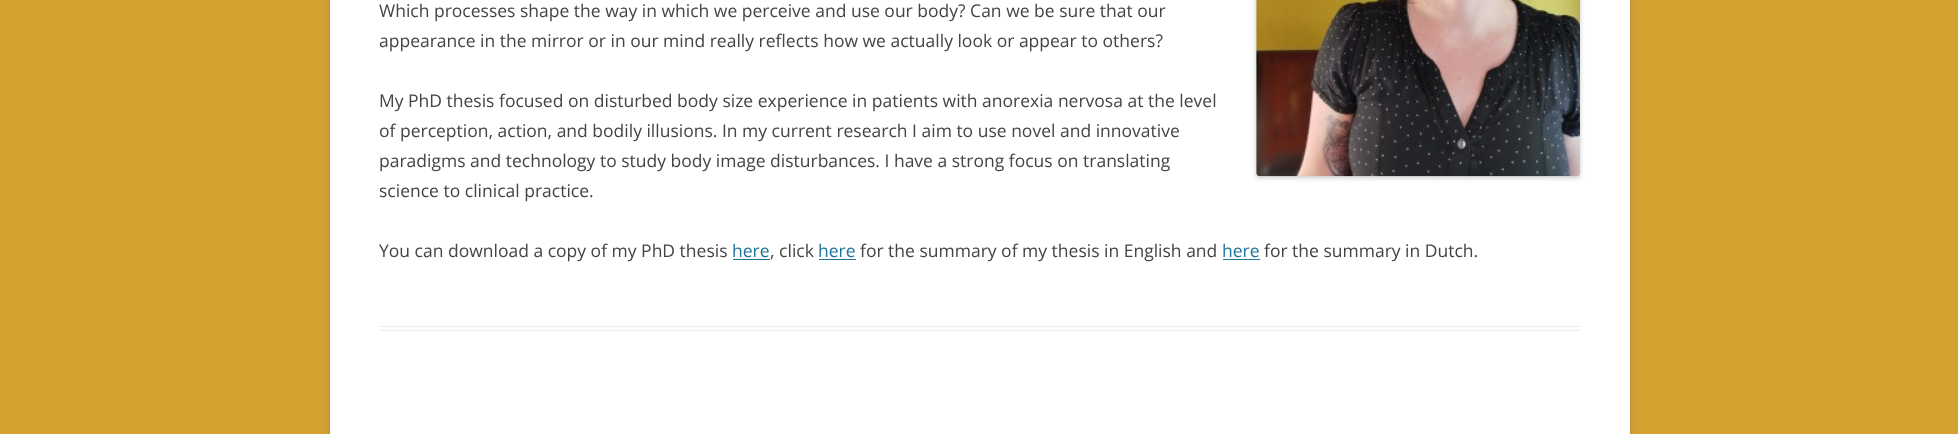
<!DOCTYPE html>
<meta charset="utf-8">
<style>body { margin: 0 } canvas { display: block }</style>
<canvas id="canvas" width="1958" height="434"></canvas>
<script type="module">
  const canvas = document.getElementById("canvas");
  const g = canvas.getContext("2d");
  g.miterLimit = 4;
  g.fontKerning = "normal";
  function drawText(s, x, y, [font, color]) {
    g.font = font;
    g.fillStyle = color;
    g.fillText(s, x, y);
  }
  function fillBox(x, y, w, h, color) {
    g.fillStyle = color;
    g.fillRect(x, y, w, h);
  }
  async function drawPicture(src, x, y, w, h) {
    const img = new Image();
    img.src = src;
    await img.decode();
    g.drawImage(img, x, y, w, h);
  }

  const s1 = ["17.5px Open Sans", "#444444"];
  const s2 = ["17.5px Open Sans", "#21759B"];

  fillBox(0, 0, 1958, 434, "#D3A230");
  g.fillStyle = "rgba(100, 100, 100, 0.3)";
  g.filter = "blur(4px)";
  g.beginPath();
  g.rect(330, -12, 1300, 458);
  g.fill();
  g.filter = "none";
  fillBox(330, 0, 1300, 434, "#FFFFFF");
  fillBox(380, 326, 1200, 1, "#EDEDED");
  fillBox(380, 330, 1200, 1, "#EDEDED");
  drawText("Which processes shape the way in which we perceive and use our body? Can we be sure that our", 379, 17, s1);
  drawText("appearance in the mirror or in our mind really reflects how we actually look or appear to others?", 379, 47, s1);
  g.fillStyle = "rgba(0, 0, 0, 0.2)";
  g.filter = "blur(2.5px)";
  g.beginPath();
  g.roundRect(1256, -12, 324, 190, 4);
  g.fill();
  g.filter = "none";
  await drawPicture("pic1.png", 1256, 0, 324, 177);
  drawText("My PhD thesis focused on disturbed body size experience in patients with anorexia nervosa at the level", 379, 107, s1);
  drawText("of perception, action, and bodily illusions. In my current research I aim to use novel and innovative", 379, 137, s1);
  drawText("paradigms and technology to study body image disturbances. I have a strong focus on translating", 379, 167, s1);
  drawText("science to clinical practice.", 379, 197, s1);
  drawText("You can download a copy of my PhD thesis", 379, 257, s1);
  drawText("here", 732, 257, s2);
  fillBox(733, 259, 37, 1, "#21759B");
  drawText(", click", 770, 257, s1);
  drawText("here", 818, 257, s2);
  fillBox(819, 259, 37, 1, "#21759B");
  drawText("for the summary of my thesis in English and", 860, 257, s1);
  drawText("here", 1222, 257, s2);
  fillBox(1223, 259, 37, 1, "#21759B");
  drawText("for the summary in Dutch.", 1264, 257, s1);
</script>
